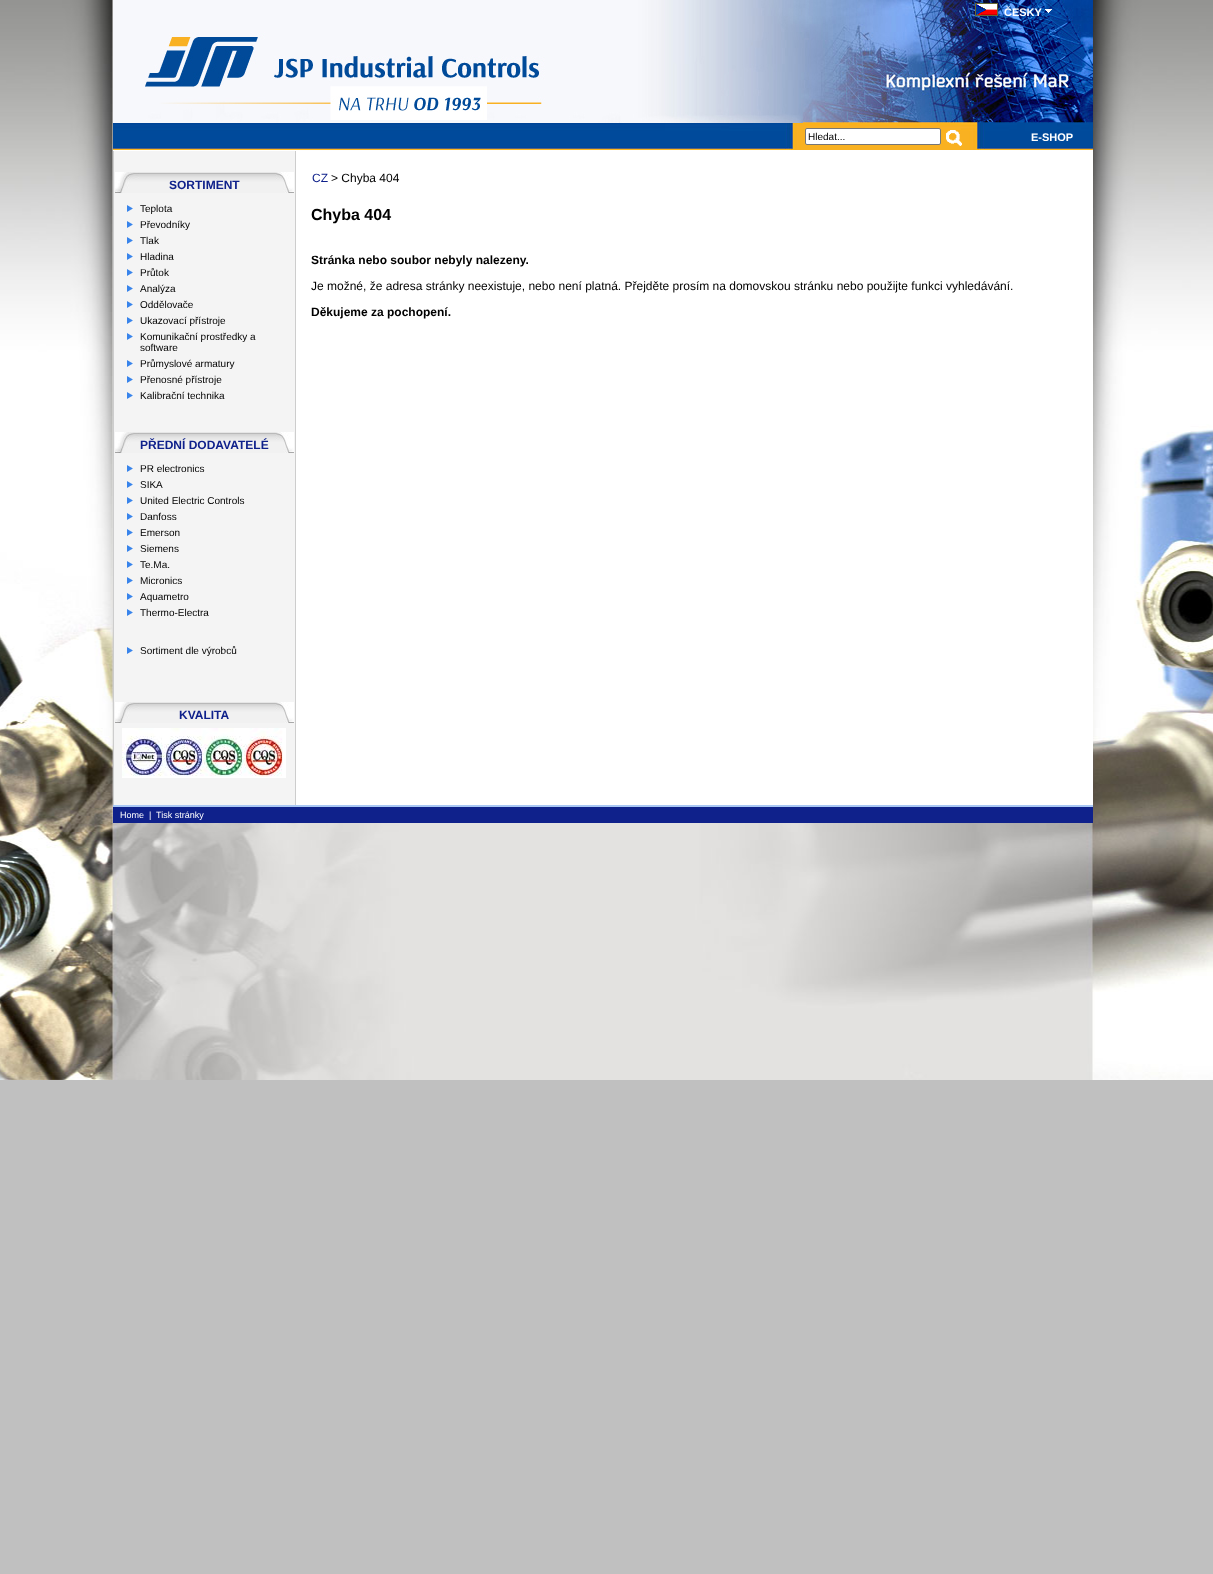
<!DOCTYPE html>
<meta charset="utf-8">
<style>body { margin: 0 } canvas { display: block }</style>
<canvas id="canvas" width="1213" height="1574"></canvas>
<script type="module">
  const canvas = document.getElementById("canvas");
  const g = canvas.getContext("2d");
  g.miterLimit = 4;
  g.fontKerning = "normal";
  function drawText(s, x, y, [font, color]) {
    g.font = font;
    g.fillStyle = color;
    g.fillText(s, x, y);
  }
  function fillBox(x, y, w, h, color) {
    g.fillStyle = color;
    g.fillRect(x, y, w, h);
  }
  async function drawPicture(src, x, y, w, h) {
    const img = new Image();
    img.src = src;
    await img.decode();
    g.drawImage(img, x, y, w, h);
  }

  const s1 = ["bold 11px Liberation Sans", "#FFFFFF"];
  const s2 = ["10px Liberation Sans", "#000000"];
  const s3 = ["bold 12px Liberation Sans", "#0F218B"];
  const s4 = ["12px Liberation Sans", "#0F218B"];
  const s5 = ["12px Liberation Sans", "#000000"];
  const s6 = ["bold 16px Liberation Sans", "#000000"];
  const s7 = ["bold 12px Liberation Sans", "#000000"];
  const s8 = ["9px Liberation Sans", "#FFFFFF"];

  fillBox(0, 0, 1213, 1574, "#C0C0C0");
  await drawPicture("pic1.png", 0, 0, 1213, 1080);
  fillBox(113, 150, 980, 1, "#FFFFFF");
  await drawPicture("pic2.png", 113, 0, 980, 123);
  fillBox(967, 3, 1, 16, "#0F218B");
  await drawPicture("pic3.png", 975, 3, 23, 13);
  drawText("ČESKY", 1004, 16, s1);
  await drawPicture("pic4.png", 1045, 9, 7, 4);
  await drawPicture("pic5.png", 113, 123, 980, 27);
  g.beginPath();
  g.roundRect(805.5, 128.5, 135, 16, 1.5);
  g.fill();
  g.strokeStyle = "#767676";
  g.stroke();
  drawText("Hledat...", 808, 140, s2);
  await drawPicture("pic6.png", 946, 130, 16, 16);
  drawText("E-SHOP", 1031, 141, s1);
  fillBox(296, 151, 797, 654, "#FFFFFF");
  fillBox(114, 151, 181, 654, "#F4F4F4");
  fillBox(295, 151, 1, 655, "#CDCDCD");
  fillBox(113, 151, 1, 655, "#CDCDCD");
  await drawPicture("pic7.png", 115, 172, 179, 21);
  drawText("SORTIMENT", 169, 189, s3);
  await drawPicture("pic8.png", 127, 205, 6, 7);
  drawText("Teplota", 140, 212, s2);
  await drawPicture("pic8.png", 127, 221, 6, 7);
  drawText("Převodníky", 140, 228, s2);
  await drawPicture("pic8.png", 127, 237, 6, 7);
  drawText("Tlak", 140, 244, s2);
  await drawPicture("pic8.png", 127, 253, 6, 7);
  drawText("Hladina", 140, 260, s2);
  await drawPicture("pic8.png", 127, 269, 6, 7);
  drawText("Průtok", 140, 276, s2);
  await drawPicture("pic8.png", 127, 285, 6, 7);
  drawText("Analýza", 140, 292, s2);
  await drawPicture("pic8.png", 127, 301, 6, 7);
  drawText("Oddělovače", 140, 308, s2);
  await drawPicture("pic8.png", 127, 317, 6, 7);
  drawText("Ukazovací přístroje", 140, 324, s2);
  await drawPicture("pic8.png", 127, 333, 6, 7);
  drawText("Komunikační prostředky a", 140, 340, s2);
  drawText("software", 140, 351, s2);
  await drawPicture("pic8.png", 127, 360, 6, 7);
  drawText("Průmyslové armatury", 140, 367, s2);
  await drawPicture("pic8.png", 127, 376, 6, 7);
  drawText("Přenosné přístroje", 140, 383, s2);
  await drawPicture("pic8.png", 127, 392, 6, 7);
  drawText("Kalibrační technika", 140, 399, s2);
  await drawPicture("pic7.png", 115, 432, 179, 21);
  drawText("PŘEDNÍ DODAVATELÉ", 140, 449, s3);
  await drawPicture("pic8.png", 127, 465, 6, 7);
  drawText("PR electronics", 140, 472, s2);
  await drawPicture("pic8.png", 127, 481, 6, 7);
  drawText("SIKA", 140, 488, s2);
  await drawPicture("pic8.png", 127, 497, 6, 7);
  drawText("United Electric Controls", 140, 504, s2);
  await drawPicture("pic8.png", 127, 513, 6, 7);
  drawText("Danfoss", 140, 520, s2);
  await drawPicture("pic8.png", 127, 529, 6, 7);
  drawText("Emerson", 140, 536, s2);
  await drawPicture("pic8.png", 127, 545, 6, 7);
  drawText("Siemens", 140, 552, s2);
  await drawPicture("pic8.png", 127, 561, 6, 7);
  drawText("Te.Ma.", 140, 568, s2);
  await drawPicture("pic8.png", 127, 577, 6, 7);
  drawText("Micronics", 140, 584, s2);
  await drawPicture("pic8.png", 127, 593, 6, 7);
  drawText("Aquametro", 140, 600, s2);
  await drawPicture("pic8.png", 127, 609, 6, 7);
  drawText("Thermo-Electra", 140, 616, s2);
  await drawPicture("pic8.png", 127, 647, 6, 7);
  drawText("Sortiment dle výrobců", 140, 654, s2);
  await drawPicture("pic7.png", 115, 702, 179, 21);
  drawText("KVALITA", 179, 719, s3);
  await drawPicture("pic9.png", 122, 728, 164, 50);
  drawText("CZ", 312, 182, s4);
  drawText("> Chyba 404", 331, 182, s5);
  drawText("Chyba 404", 311, 220, s6);
  drawText("Stránka nebo soubor nebyly nalezeny.", 311, 264, s7);
  drawText("Je možné, že adresa stránky neexistuje, nebo není platná. Přejděte prosím na domovskou stránku nebo použijte funkci vyhledávání.", 311, 290, s5);
  drawText("Děkujeme za pochopení.", 311, 316, s7);
  fillBox(113, 807, 980, 16, "#0F218B");
  fillBox(113, 805, 980, 2, "#A9C7F4");
  drawText("Home", 120, 818, s8);
  drawText("|", 149, 818, s8);
  drawText("Tisk stránky", 156, 818, s8);
</script>
